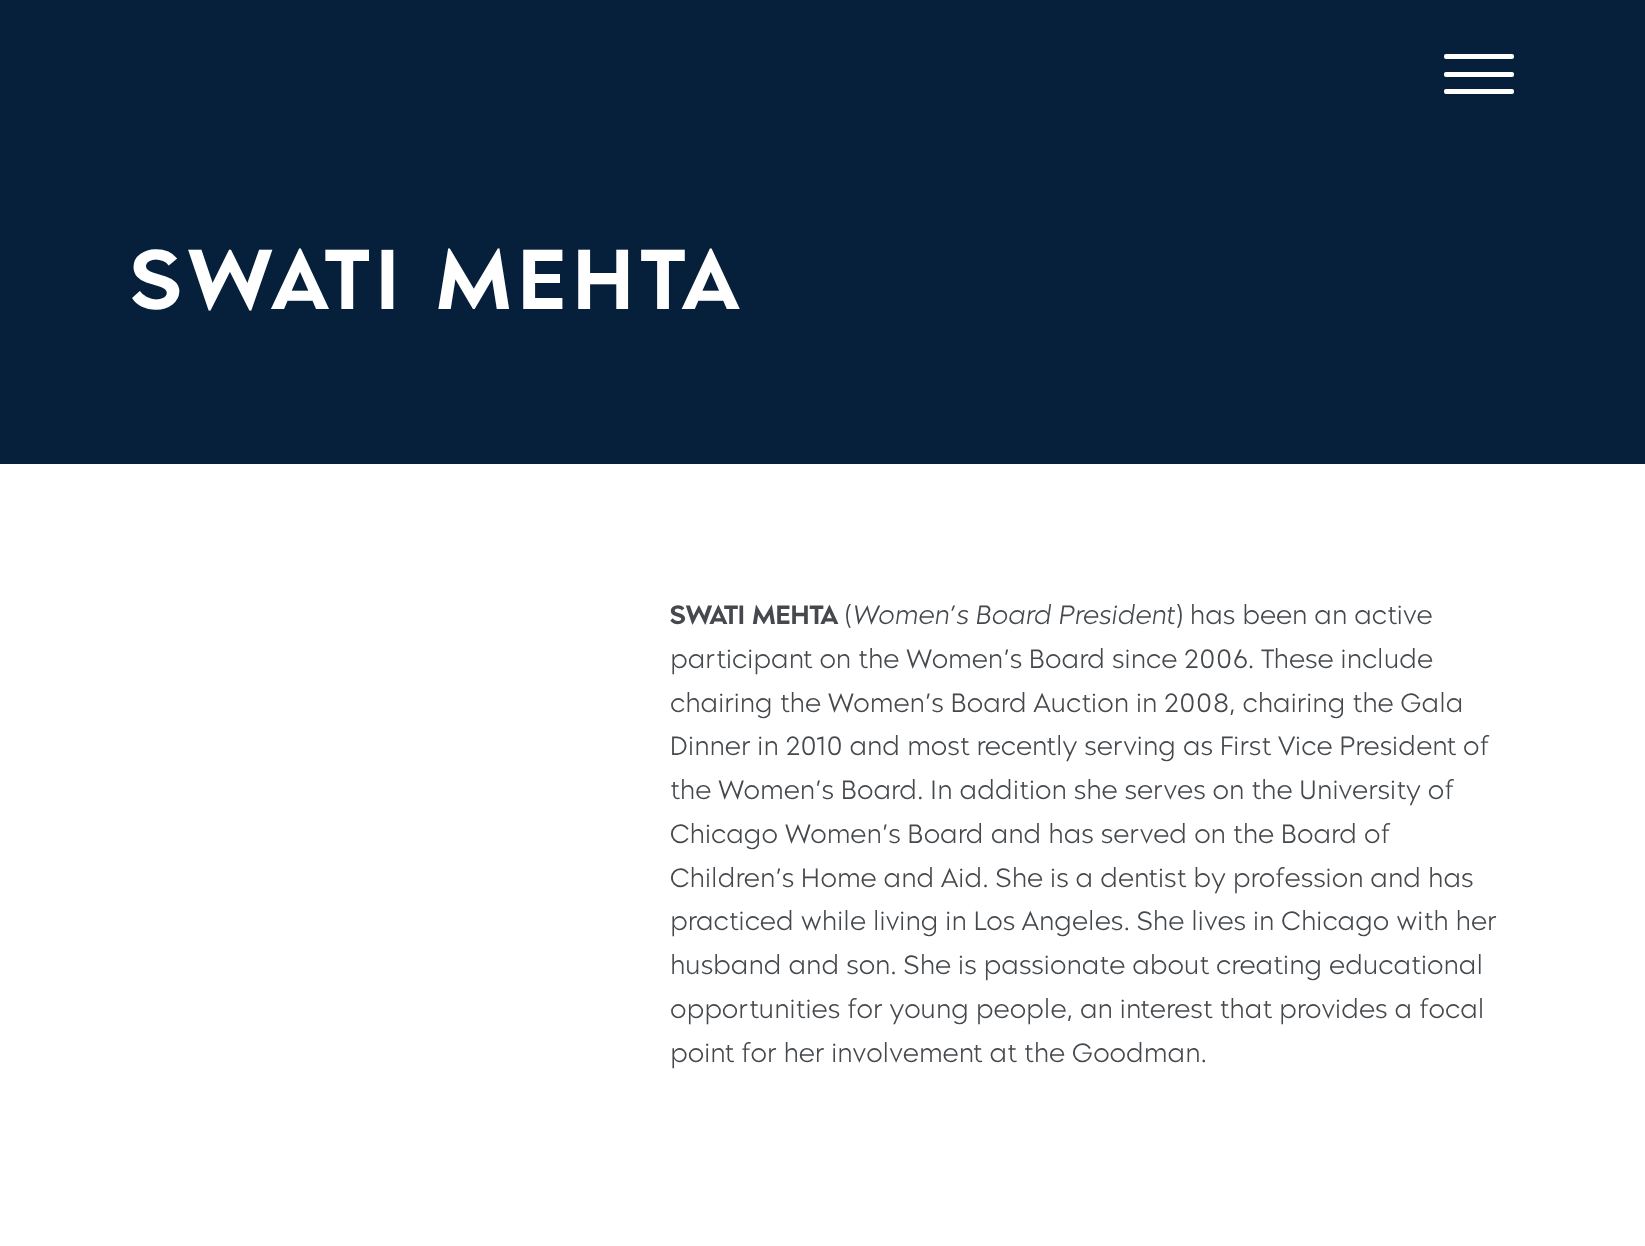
<!DOCTYPE html>
<meta charset="utf-8">
<style>body { margin: 0 } canvas { display: block }</style>
<canvas id="canvas" width="1645" height="1246"></canvas>
<script type="module">
  const canvas = document.getElementById("canvas");
  const g = canvas.getContext("2d");
  g.miterLimit = 4;
  g.fontKerning = "normal";
  function drawText(s, x, y, [font, color]) {
    g.font = font;
    g.fillStyle = color;
    g.fillText(s, x, y);
  }
  function fillBox(x, y, w, h, color) {
    g.fillStyle = color;
    g.fillRect(x, y, w, h);
  }
  function fillRounded(x, y, w, h, r, color) {
    g.fillStyle = color;
    g.beginPath();
    g.roundRect(x, y, w, h, r);
    g.fill();
  }

  const s1 = ["600 84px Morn", "#FFFFFF"];
  const s2 = ["600 26.25px Morn", "#45494D"];
  const s3 = ["300 26.25px Morn", "#45494D"];
  const s4 = ["italic 300 26.25px Morn", "#45494D"];

  fillBox(0, 0, 1645, 1246, "#FFFFFF");
  fillBox(0, 0, 1645, 464, "#061F3A");
  fillRounded(1444, 54, 70, 5, 2, "#FFFFFF");
  fillRounded(1444, 72, 70, 5, 2, "#FFFFFF");
  fillRounded(1444, 89, 70, 5, 2, "#FFFFFF");
  g.letterSpacing = "7px";
  drawText("SWATI MEHTA", 131, 309, s1);
  g.letterSpacing = "0px";
  drawText("SWATI MEHTA", 670, 624, s2);
  drawText("(", 845, 624, s3);
  drawText("Women’s Board President", 853, 624, s4);
  drawText(") has been an active", 1175, 624, s3);
  drawText("participant on the Women’s Board since 2006. These include", 670, 668, s3);
  drawText("chairing the Women’s Board Auction in 2008, chairing the Gala", 670, 712, s3);
  drawText("Dinner in 2010 and most recently serving as First Vice President of", 670, 755, s3);
  drawText("the Women’s Board. In addition she serves on the University of", 670, 799, s3);
  drawText("Chicago Women’s Board and has served on the Board of", 670, 843, s3);
  drawText("Children’s Home and Aid. She is a dentist by profession and has", 670, 887, s3);
  drawText("practiced while living in Los Angeles. She lives in Chicago with her", 670, 930, s3);
  drawText("husband and son. She is passionate about creating educational", 670, 974, s3);
  drawText("opportunities for young people, an interest that provides a focal", 670, 1018, s3);
  drawText("point for her involvement at the Goodman.", 670, 1062, s3);
</script>
